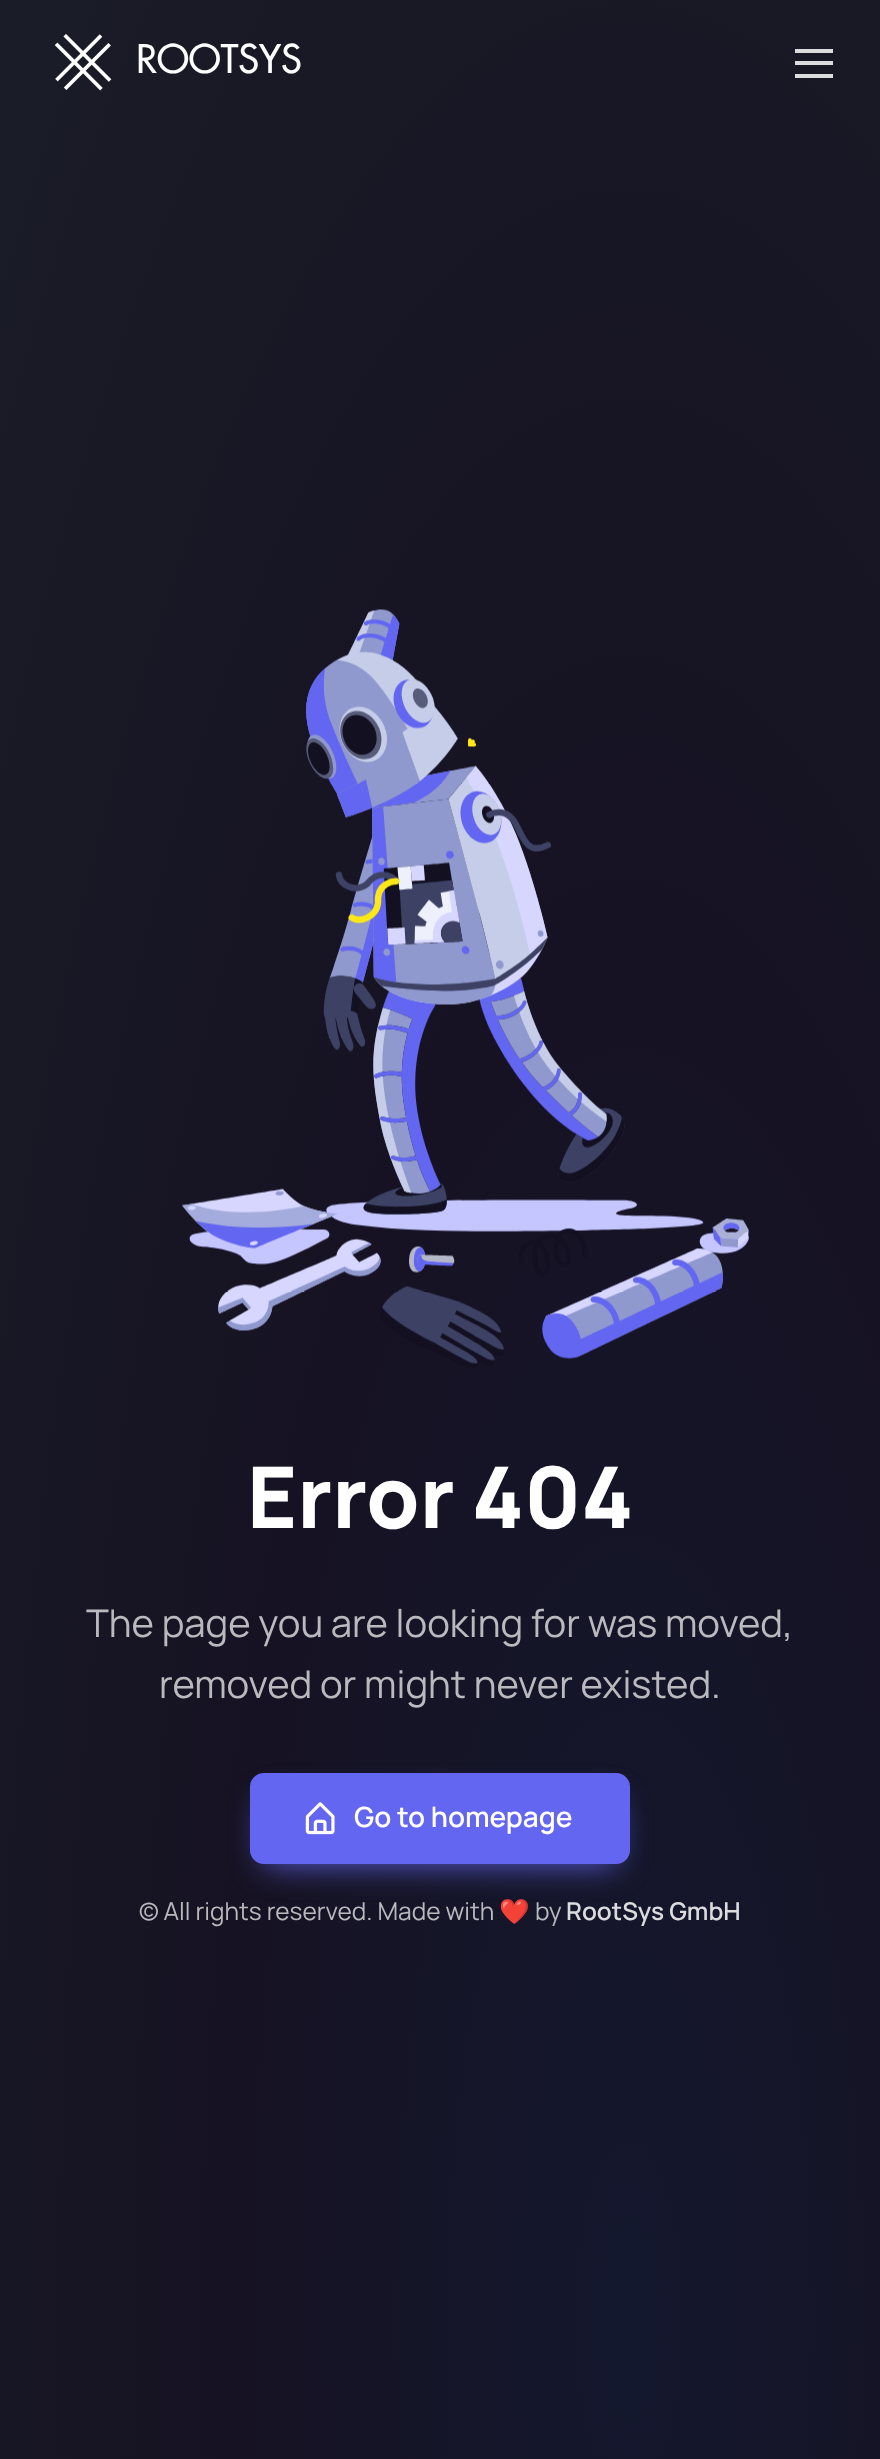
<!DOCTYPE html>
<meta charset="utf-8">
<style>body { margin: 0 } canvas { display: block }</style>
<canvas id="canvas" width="880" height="2459"></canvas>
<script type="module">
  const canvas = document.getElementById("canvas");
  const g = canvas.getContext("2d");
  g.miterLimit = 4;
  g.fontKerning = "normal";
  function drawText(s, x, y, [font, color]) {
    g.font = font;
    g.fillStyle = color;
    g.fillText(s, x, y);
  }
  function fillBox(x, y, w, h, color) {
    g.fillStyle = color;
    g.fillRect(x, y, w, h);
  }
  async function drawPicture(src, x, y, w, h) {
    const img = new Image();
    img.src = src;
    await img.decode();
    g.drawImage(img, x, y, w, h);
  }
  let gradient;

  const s1 = ["500 38.5px Futura", "#FFFFFF"];
  const s2 = ["800 85px Manrope", "#FFFFFF"];
  const s3 = ["38.3px Manrope", "#B9B9BE"];
  const s4 = ["600 28px Manrope", "#FFFFFF"];
  const s5 = ["24.5px Manrope", "#B9B9BE"];
  const s6 = ["24.5px Noto Color Emoji", "#B9B9BE"];
  const s7 = ["600 24.5px Manrope", "#DCDCDF"];

  fillBox(0, 0, 880, 2459, "#FFFFFF");
  gradient = g.createRadialGradient(629, 689.08, 0, 629, 689.08, 1270);
  gradient.addColorStop(0, "#14182E");
  gradient.addColorStop(0.32, "#161223");
  gradient.addColorStop(0.83, "#1B1F28");
  g.fillStyle = gradient;
  g.beginPath();
  g.rect(0, 0, 880, 2459);
  g.save();
  g.clip();
  g.scale(1, 4274 / 1270);
  g.fillRect(0, 0, 880, 731);
  g.restore();
  await drawPicture("pic1.png", 54, 34, 58, 57);
  drawText("ROOTSYS", 136, 73, s1);
  fillBox(795, 61, 38, 4, "#DCDCDE");
  fillBox(795, 49, 38, 4, "#DCDCDE");
  fillBox(795, 74, 38, 4, "#DCDCDE");
  await drawPicture("pic2.png", 182, 609, 567, 758);
  drawText("Error 404", 247, 1528, s2);
  drawText("The page you are looking for was moved,", 86, 1637, s3);
  drawText("removed or might never existed.", 159, 1698, s3);
  g.fillStyle = "rgba(99, 102, 241, 0.9)";
  g.filter = "blur(16px)";
  g.beginPath();
  g.rect(264, 1801, 352, 63);
  g.fill();
  g.filter = "none";
  g.fillStyle = "#6366F1";
  g.beginPath();
  g.roundRect(251, 1774, 378, 89, 13);
  g.fill();
  g.strokeStyle = "#6366F1";
  g.lineWidth = 2;
  g.stroke();
  await drawPicture("pic3.png", 305, 1802, 30, 33);
  drawText("Go to homepage", 354, 1827, s4);
  drawText("© All rights reserved. Made with", 139, 1920, s5);
  drawText("❤️", 499, 1920, s6);
  drawText("by", 535, 1920, s5);
  drawText("RootSys GmbH", 566, 1920, s7);
</script>
